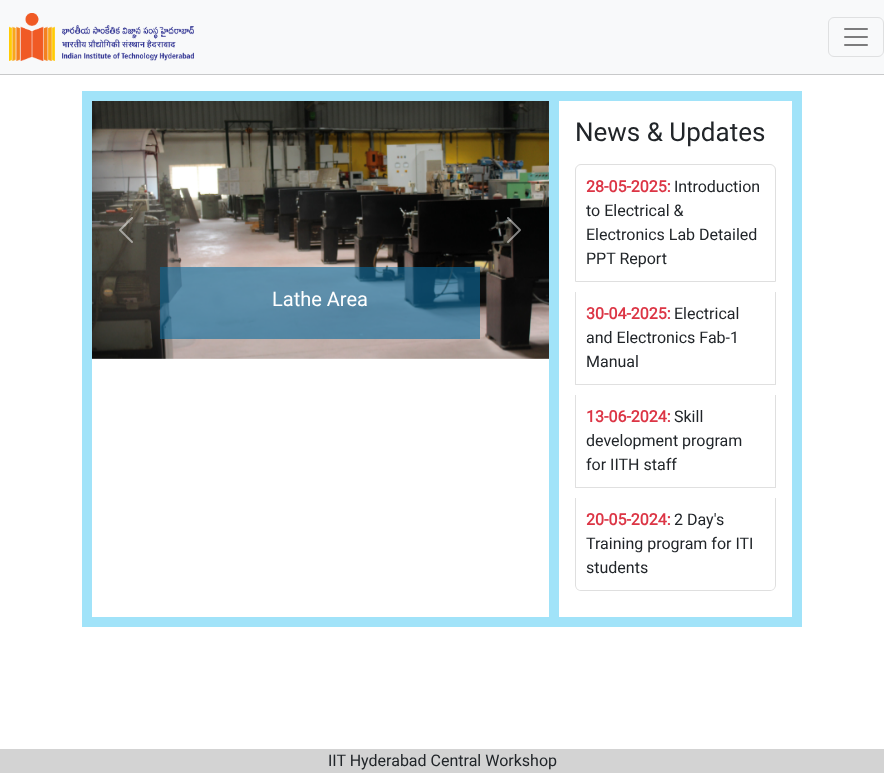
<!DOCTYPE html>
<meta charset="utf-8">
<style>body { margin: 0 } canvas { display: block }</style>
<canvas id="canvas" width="884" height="773"></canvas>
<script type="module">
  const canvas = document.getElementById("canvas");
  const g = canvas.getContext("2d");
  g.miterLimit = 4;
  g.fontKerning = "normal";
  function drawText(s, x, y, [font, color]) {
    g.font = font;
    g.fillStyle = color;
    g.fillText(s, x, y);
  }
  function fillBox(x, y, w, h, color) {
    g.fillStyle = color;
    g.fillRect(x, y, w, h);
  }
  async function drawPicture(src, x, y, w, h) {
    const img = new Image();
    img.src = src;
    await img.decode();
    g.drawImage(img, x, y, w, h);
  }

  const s1 = ["20px Roboto", "#FFFFFF"];
  const s2 = ["26px Roboto", "#212529"];
  const s3 = ["bold 16px Roboto", "#DC3545"];
  const s4 = ["16px Roboto", "#212529"];

  fillBox(0, 0, 884, 773, "#FFFFFF");
  fillBox(0, 0, 884, 74, "#F8F9FA");
  await drawPicture("pic1.png", 9, 13, 185, 48);
  g.beginPath();
  g.roundRect(828.5, 17.5, 55, 39, 5.5);
  g.strokeStyle = "#DFE0E1";
  g.stroke();
  await drawPicture("pic2.png", 844, 28, 24, 18);
  fillBox(0, 74, 884, 1, "#C8C9CA");
  g.strokeStyle = "#A1E3F9";
  g.lineWidth = 10;
  g.strokeRect(87, 96, 710, 526);
  fillBox(549, 101, 10, 516, "#A1E3F9");
  await drawPicture("pic5.png", 92, 101, 457, 258);
  await drawPicture("pic3.png", 119, 217, 14, 26);
  await drawPicture("pic4.png", 507, 217, 14, 26);
  fillBox(160, 267, 320, 72, "rgba(10, 106, 158, 0.6)");
  drawText("Lathe Area", 272, 306, s1);
  drawText("News & Updates", 575, 141, s2);
  g.beginPath();
  g.roundRect(575.5, 164.5, 200, 117, [5.5, 5.5, 0, 0]);
  g.strokeStyle = "#DFDFDF";
  g.lineWidth = 1;
  g.stroke();
  drawText("28-05-2025:", 586, 192, s3);
  drawText("Introduction", 674, 192, s4);
  drawText("to Electrical &", 586, 216, s4);
  drawText("Electronics Lab Detailed", 586, 240, s4);
  drawText("PPT Report", 586, 264, s4);
  g.fillStyle = "#DFDFDF";
  g.beginPath();
  g.moveTo(776, 292);
  g.lineTo(776, 385);
  g.lineTo(775, 384);
  g.lineTo(775, 292);
  g.closePath();
  g.fill();
  g.fillStyle = "rgba(0, 0, 0, 0.12)";
  g.beginPath();
  g.moveTo(776, 385);
  g.lineTo(575, 385);
  g.lineTo(576, 384);
  g.lineTo(775, 384);
  g.closePath();
  g.fill();
  g.beginPath();
  g.moveTo(575, 385);
  g.lineTo(575, 292);
  g.lineTo(576, 292);
  g.lineTo(576, 384);
  g.closePath();
  g.fill();
  drawText("30-04-2025:", 586, 319, s3);
  drawText("Electrical", 674, 319, s4);
  drawText("and Electronics Fab-1", 586, 343, s4);
  drawText("Manual", 586, 367, s4);
  g.fillStyle = "#DFDFDF";
  g.beginPath();
  g.moveTo(776, 395);
  g.lineTo(776, 488);
  g.lineTo(775, 487);
  g.lineTo(775, 395);
  g.closePath();
  g.fill();
  g.fillStyle = "rgba(0, 0, 0, 0.12)";
  g.beginPath();
  g.moveTo(776, 488);
  g.lineTo(575, 488);
  g.lineTo(576, 487);
  g.lineTo(775, 487);
  g.closePath();
  g.fill();
  g.beginPath();
  g.moveTo(575, 488);
  g.lineTo(575, 395);
  g.lineTo(576, 395);
  g.lineTo(576, 487);
  g.closePath();
  g.fill();
  drawText("13-06-2024:", 586, 422, s3);
  drawText("Skill", 674, 422, s4);
  drawText("development program", 586, 446, s4);
  drawText("for IITH staff", 586, 470, s4);
  g.fillStyle = "#DFDFDF";
  g.beginPath();
  g.moveTo(575, 498);
  g.lineTo(776, 498);
  g.lineTo(776, 585);
  g.bezierCurveTo(776, 588, 773, 591, 770, 591);
  g.lineTo(581, 591);
  g.bezierCurveTo(578, 591, 575, 588, 575, 585);
  g.closePath();
  g.moveTo(576, 498);
  g.lineTo(775, 498);
  g.lineTo(775, 585);
  g.bezierCurveTo(775, 588, 773, 590, 770, 590);
  g.lineTo(581, 590);
  g.bezierCurveTo(578, 590, 576, 588, 576, 585);
  g.closePath();
  g.fill("evenodd");
  drawText("20-05-2024:", 586, 525, s3);
  drawText("2 Day's", 674, 525, s4);
  drawText("Training program for ITI", 586, 549, s4);
  drawText("students", 586, 573, s4);
  fillBox(0, 749, 884, 24, "#D3D3D3");
  drawText("IIT Hyderabad Central Workshop", 328, 766, s4);
</script>
